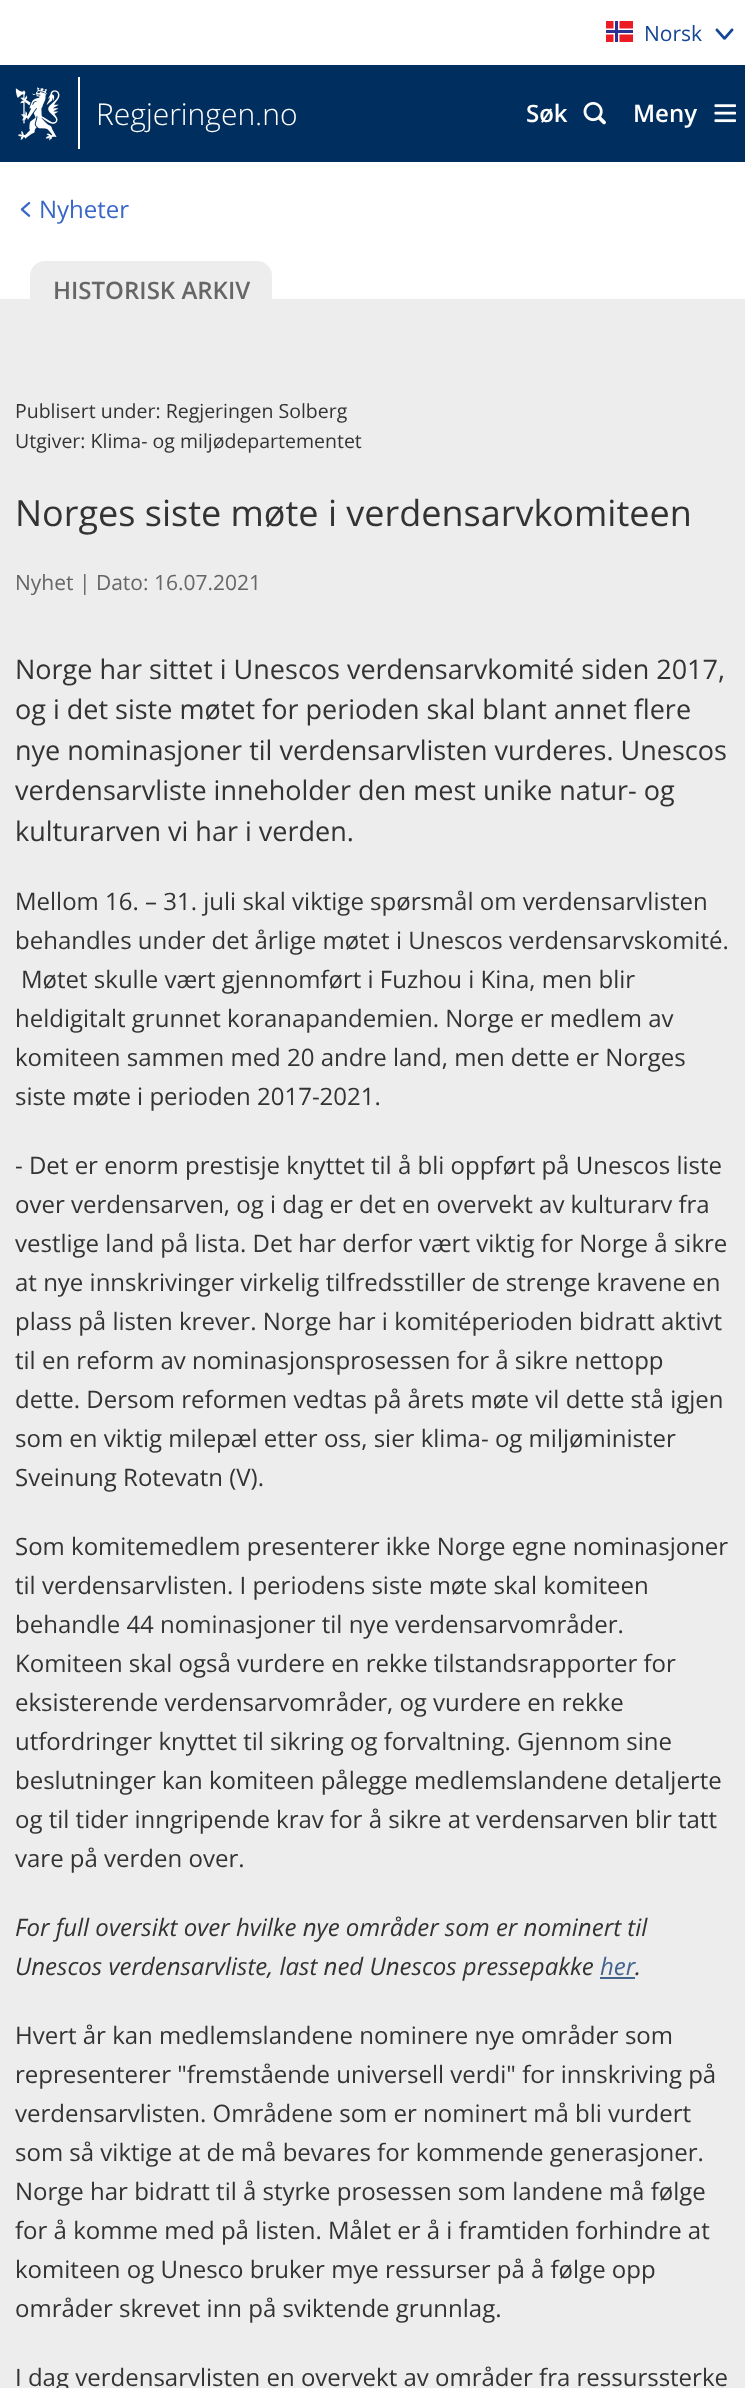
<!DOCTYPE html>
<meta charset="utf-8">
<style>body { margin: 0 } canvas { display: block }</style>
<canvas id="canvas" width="745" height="2388"></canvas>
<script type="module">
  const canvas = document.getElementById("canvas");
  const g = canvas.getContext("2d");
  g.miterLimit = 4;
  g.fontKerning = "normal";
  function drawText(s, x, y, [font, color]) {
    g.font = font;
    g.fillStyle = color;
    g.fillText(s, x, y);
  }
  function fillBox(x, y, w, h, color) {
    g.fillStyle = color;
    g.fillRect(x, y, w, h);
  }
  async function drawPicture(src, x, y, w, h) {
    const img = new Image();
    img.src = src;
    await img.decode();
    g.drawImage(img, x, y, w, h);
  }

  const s1 = ["21px Open Sans", "#144696"];
  const s2 = ["300 30px Open Sans", "#FFFFFF"];
  const s3 = ["600 24px Open Sans", "#FFFFFF"];
  const s4 = ["24px Open Sans", "#3867C8"];
  const s5 = ["600 24px Open Sans", "#666666"];
  const s6 = ["19.5px Open Sans", "#333333"];
  const s7 = ["36px Open Sans", "#333333"];
  const s8 = ["21px Open Sans", "#666666"];
  const s9 = ["27px Open Sans", "#333333"];
  const s10 = ["24px Open Sans", "#333333"];
  const s11 = ["italic 24px Open Sans", "#333333"];
  const s12 = ["italic 24px Open Sans", "#44638D"];

  fillBox(0, 0, 745, 2388, "#EDEDED");
  fillBox(0, 0, 745, 299, "#FFFFFF");
  await drawPicture("pic1.png", 606, 21, 27, 21);
  drawText("Norsk", 644, 41, s1);
  await drawPicture("pic2.png", 715, 28, 19, 12);
  fillBox(0, 65, 745, 97, "#002E5E");
  await drawPicture("pic3.png", 15, 87, 45, 54);
  fillBox(78, 77, 2, 72, "#FFFFFF");
  drawText("Regjeringen.no", 96, 125, s2);
  drawText("Søk", 526, 122, s3);
  await drawPicture("pic4.png", 583, 102, 23, 23);
  drawText("Meny", 633, 122, s3);
  await drawPicture("pic5.png", 714, 104, 23, 19);
  await drawPicture("pic6.png", 20, 202, 11, 15);
  drawText("Nyheter", 39, 218, s4);
  g.fillStyle = "#EDEDED";
  g.beginPath();
  g.roundRect(30, 261, 242, 45, [15, 15, 0, 0]);
  g.fill();
  drawText("HISTORISK ARKIV", 53, 299, s5);
  drawText("Publisert under: Regjeringen Solberg", 15, 418, s6);
  drawText("Utgiver: Klima- og miljødepartementet", 15, 448, s6);
  drawText("Norges siste møte i verdensarvkomiteen", 15, 526, s7);
  drawText("Nyhet | Dato: 16.07.2021", 15, 590, s8);
  drawText("Norge har sittet i Unescos verdensarvkomité siden 2017,", 15, 679, s9);
  drawText("og i det siste møtet for perioden skal blant annet flere", 15, 719, s9);
  drawText("nye nominasjoner til verdensarvlisten vurderes. Unescos", 15, 760, s9);
  drawText("verdensarvliste inneholder den mest unike natur- og", 15, 800, s9);
  drawText("kulturarven vi har i verden.", 15, 841, s9);
  drawText("Mellom 16. – 31. juli skal viktige spørsmål om verdensarvlisten", 15, 910, s10);
  drawText("behandles under det årlige møtet i Unescos verdensarvskomité.", 15, 949, s10);
  drawText("Møtet skulle vært gjennomført i Fuzhou i Kina, men blir", 21, 988, s10);
  drawText("heldigitalt grunnet koranapandemien. Norge er medlem av", 15, 1027, s10);
  drawText("komiteen sammen med 20 andre land, men dette er Norges", 15, 1066, s10);
  drawText("siste møte i perioden 2017-2021.", 15, 1105, s10);
  drawText("- Det er enorm prestisje knyttet til å bli oppført på Unescos liste", 15, 1174, s10);
  drawText("over verdensarven, og i dag er det en overvekt av kulturarv fra", 15, 1213, s10);
  drawText("vestlige land på lista. Det har derfor vært viktig for Norge å sikre", 15, 1252, s10);
  drawText("at nye innskrivinger virkelig tilfredsstiller de strenge kravene en", 15, 1291, s10);
  drawText("plass på listen krever. Norge har i komitéperioden bidratt aktivt", 15, 1330, s10);
  drawText("til en reform av nominasjonsprosessen for å sikre nettopp", 15, 1369, s10);
  drawText("dette. Dersom reformen vedtas på årets møte vil dette stå igjen", 15, 1408, s10);
  drawText("som en viktig milepæl etter oss, sier klima- og miljøminister", 15, 1447, s10);
  drawText("Sveinung Rotevatn (V).", 15, 1486, s10);
  drawText("Som komitemedlem presenterer ikke Norge egne nominasjoner", 15, 1555, s10);
  drawText("til verdensarvlisten. I periodens siste møte skal komiteen", 15, 1594, s10);
  drawText("behandle 44 nominasjoner til nye verdensarvområder.", 15, 1633, s10);
  drawText("Komiteen skal også vurdere en rekke tilstandsrapporter for", 15, 1672, s10);
  drawText("eksisterende verdensarvområder, og vurdere en rekke", 15, 1711, s10);
  drawText("utfordringer knyttet til sikring og forvaltning. Gjennom sine", 15, 1750, s10);
  drawText("beslutninger kan komiteen pålegge medlemslandene detaljerte", 15, 1789, s10);
  drawText("og til tider inngripende krav for å sikre at verdensarven blir tatt", 15, 1828, s10);
  drawText("vare på verden over.", 15, 1867, s10);
  drawText("For full oversikt over hvilke nye områder som er nominert til", 15, 1936, s11);
  drawText("Unescos verdensarvliste, last ned Unescos pressepakke", 15, 1975, s11);
  drawText("her", 600, 1975, s12);
  fillBox(600, 1977, 35, 2, "#44638D");
  drawText(".", 635, 1975, s11);
  drawText("Hvert år kan medlemslandene nominere nye områder som", 15, 2044, s10);
  drawText("representerer \"fremstående universell verdi\" for innskriving på", 15, 2083, s10);
  drawText("verdensarvlisten. Områdene som er nominert må bli vurdert", 15, 2122, s10);
  drawText("som så viktige at de må bevares for kommende generasjoner.", 15, 2161, s10);
  drawText("Norge har bidratt til å styrke prosessen som landene må følge", 15, 2200, s10);
  drawText("for å komme med på listen. Målet er å i framtiden forhindre at", 15, 2239, s10);
  drawText("komiteen og Unesco bruker mye ressurser på å følge opp", 15, 2278, s10);
  drawText("områder skrevet inn på sviktende grunnlag.", 15, 2317, s10);
  drawText("I dag verdensarvlisten en overvekt av områder fra ressurssterke", 15, 2386, s10);
</script>
